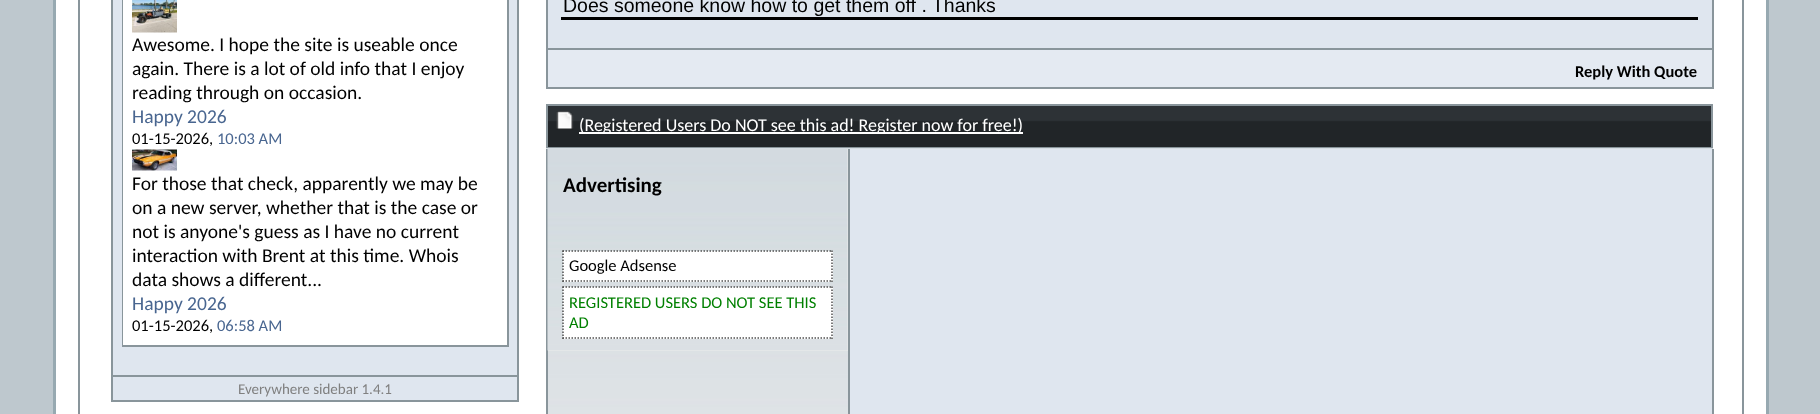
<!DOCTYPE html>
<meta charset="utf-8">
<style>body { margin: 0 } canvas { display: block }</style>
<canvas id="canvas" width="1820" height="414"></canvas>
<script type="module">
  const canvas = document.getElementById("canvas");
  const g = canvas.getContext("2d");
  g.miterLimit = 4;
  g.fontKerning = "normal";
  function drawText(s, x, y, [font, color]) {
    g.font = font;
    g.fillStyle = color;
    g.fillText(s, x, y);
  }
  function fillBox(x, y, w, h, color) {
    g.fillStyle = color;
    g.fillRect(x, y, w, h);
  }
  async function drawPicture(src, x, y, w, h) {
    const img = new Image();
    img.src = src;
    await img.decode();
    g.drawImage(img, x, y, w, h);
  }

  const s1 = ["19.5px Carlito", "#000000"];
  const s2 = ["19.5px Carlito", "#496690"];
  const s3 = ["16.5px Carlito", "#000000"];
  const s4 = ["16.5px Carlito", "#496690"];
  const s5 = ["15px Carlito", "#808080"];
  const s6 = ["19.5px Liberation Sans", "#000000"];
  const s7 = ["bold 16.5px Carlito", "#000000"];
  const s8 = ["18px Carlito", "#FFFFFF"];
  const s9 = ["bold 21px Carlito", "#000000"];
  const s10 = ["16.5px Carlito", "#008000"];

  fillBox(0, 0, 1820, 414, "#BEC8CE");
  fillBox(56, 0, 1710, 414, "#FFFFFF");
  fillBox(1766, 0, 3, 414, "#97A9B1");
  fillBox(53, 0, 3, 414, "#97A9B1");
  fillBox(78, 0, 2, 414, "#89959B");
  fillBox(1742, 0, 2, 414, "#89959B");
  g.fillStyle = "#DFE6EF";
  g.beginPath();
  g.rect(112, -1, 406, 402);
  g.fill();
  g.strokeStyle = "#89959B";
  g.lineWidth = 2;
  g.stroke();
  g.strokeRect(123, -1, 385, 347);
  fillBox(123, 0, 384, 345, "#FFFFFF");
  await drawPicture("pic1.png", 132, 0, 45, 33);
  drawText("Awesome. I hope the site is useable once", 132, 51, s1);
  drawText("again. There is a lot of old info that I enjoy", 132, 75, s1);
  drawText("reading through on occasion.", 132, 99, s1);
  drawText("Happy 2026", 132, 123, s2);
  drawText("01-15-2026,", 132, 144, s3);
  drawText("10:03 AM", 217, 144, s4);
  await drawPicture("pic2.png", 132, 149, 45, 22);
  drawText("For those that check, apparently we may be", 132, 190, s1);
  drawText("on a new server, whether that is the case or", 132, 214, s1);
  drawText("not is anyone's guess as I have no current", 132, 238, s1);
  drawText("interaction with Brent at this time. Whois", 132, 262, s1);
  drawText("data shows a different...", 132, 286, s1);
  drawText("Happy 2026", 132, 310, s2);
  drawText("01-15-2026,", 132, 331, s3);
  drawText("06:58 AM", 217, 331, s4);
  fillBox(113, 375, 405, 2, "#89959B");
  drawText("Everywhere sidebar 1.4.1", 238, 394, s5);
  fillBox(548, 0, 1164, 48, "#DFE6EF");
  fillBox(1712, 0, 2, 89, "#89959B");
  fillBox(546, 48, 1167, 2, "#89959B");
  fillBox(546, 0, 2, 50, "#89959B");
  drawText("Does someone know how to get them off . Thanks", 563, 12, s6);
  fillBox(561, 17, 1137, 3, "#000000");
  fillBox(546, 87, 1167, 2, "#89959B");
  fillBox(546, 50, 2, 39, "#89959B");
  fillBox(548, 50, 1164, 37, "#E4EAF2");
  drawText("Reply With Quote", 1575, 77, s7);
  await drawPicture("pic3.png", 548, 106, 1163, 41);
  g.strokeRect(547, 105, 1165, 43);
  await drawPicture("pic4.png", 556, 111, 18, 19);
  fillBox(579, 132, 444, 2, "#FFFFFF");
  drawText("(Registered Users Do NOT see this ad! Register now for free!)", 579, 131, s8);
  await drawPicture("pic5.png", 546, 148, 1167, 266);
  fillBox(1712, 149, 2, 265, "#89959B");
  fillBox(546, 149, 2, 265, "#89959B");
  fillBox(548, 149, 300, 202, "#EDEDED");
  await drawPicture("pic6.png", 547, 149, 301, 202);
  drawText("Advertising", 563, 192, s9);
  fillBox(563, 251, 270, 31, "#FFFFFF");
  g.beginPath();
  g.moveTo(562.5, 251);
  g.lineTo(832.5, 251);
  g.strokeStyle = "#505050";
  g.lineWidth = 1.5;
  g.setLineDash([1.5, 1.5]);
  g.stroke();
  g.beginPath();
  g.moveTo(832, 250.5);
  g.lineTo(832, 282);
  g.stroke();
  g.beginPath();
  g.moveTo(562.5, 281);
  g.lineTo(832.5, 281);
  g.stroke();
  g.beginPath();
  g.moveTo(563, 250.5);
  g.lineTo(563, 282);
  g.stroke();
  drawText("Google Adsense", 569, 271, s3);
  fillBox(563, 287, 270, 52, "#FFFFFF");
  g.beginPath();
  g.moveTo(562.5, 287);
  g.lineTo(832.5, 287);
  g.stroke();
  g.beginPath();
  g.moveTo(832, 286.5);
  g.lineTo(832, 339);
  g.stroke();
  g.beginPath();
  g.moveTo(562.5, 338);
  g.lineTo(832.5, 338);
  g.stroke();
  g.beginPath();
  g.moveTo(563, 286.5);
  g.lineTo(563, 339);
  g.stroke();
  drawText("REGISTERED USERS DO NOT SEE THIS", 569, 308, s10);
  drawText("AD", 569, 328, s10);
  fillBox(850, 149, 862, 265, "#DFE6EF");
  fillBox(848, 149, 2, 265, "#89959B");
</script>
